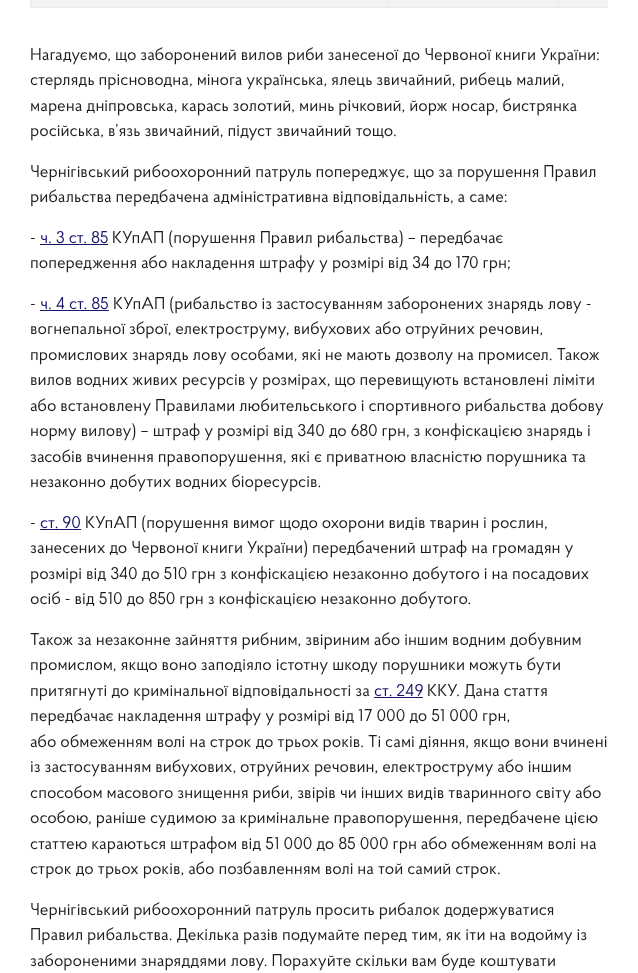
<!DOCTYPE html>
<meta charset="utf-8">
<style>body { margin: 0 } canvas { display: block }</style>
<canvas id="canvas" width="638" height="973"></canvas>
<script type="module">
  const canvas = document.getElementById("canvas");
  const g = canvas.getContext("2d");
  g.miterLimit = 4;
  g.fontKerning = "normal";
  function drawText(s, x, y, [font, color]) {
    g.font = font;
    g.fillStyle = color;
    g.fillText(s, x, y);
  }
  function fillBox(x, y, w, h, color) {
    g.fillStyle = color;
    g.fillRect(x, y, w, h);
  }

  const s1 = ["17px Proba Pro", "#1D1D1B"];
  const s2 = ["17px Proba Pro", "#17166C"];

  fillBox(0, 0, 638, 973, "#FFFFFF");
  fillBox(30, 7, 578, 1, "#E9ECEF");
  fillBox(30, 0, 1, 8, "#E9ECEF");
  fillBox(31, 0, 577, 7, "#F2F2F2");
  fillBox(388, 0, 1, 8, "#E9ECEF");
  fillBox(558, 0, 1, 8, "#E9ECEF");
  drawText("Нагадуємо, що заборонений вилов риби занесеної до Червоної книги України:", 30, 60, s1);
  drawText("стерлядь прісноводна, мінога українська, ялець звичайний, рибець малий,", 30, 85, s1);
  drawText("марена дніпровська, карась золотий, минь річковий, йорж носар, бистрянка", 30, 111, s1);
  drawText("російська, в’язь звичайний, підуст звичайний тощо.", 30, 136, s1);
  drawText("Чернігівський рибоохоронний патруль попереджує, що за порушення Правил", 30, 177, s1);
  drawText("рибальства передбачена адміністративна відповідальність, а саме:", 30, 202, s1);
  drawText("-", 30, 243, s1);
  drawText("ч. 3 ст. 85", 40, 243, s2);
  fillBox(40, 244, 68, 1, "#17166C");
  drawText("КУпАП (порушення Правил рибальства) – передбачає", 112, 243, s1);
  drawText("попередження або накладення штрафу у розмірі від 34 до 170 грн;", 30, 268, s1);
  drawText("-", 30, 309, s1);
  drawText("ч. 4 ст. 85", 40, 309, s2);
  fillBox(40, 310, 69, 1, "#17166C");
  drawText("КУпАП (рибальство із застосуванням заборонених знарядь лову -", 113, 309, s1);
  drawText("вогнепальної зброї, електроструму, вибухових або отруйних речовин,", 30, 334, s1);
  drawText("промислових знарядь лову особами, які не мають дозволу на промисел. Також", 30, 360, s1);
  drawText("вилов водних живих ресурсів у розмірах, що перевищують встановлені ліміти", 30, 385, s1);
  drawText("або встановлену Правилами любительського і спортивного рибальства добову", 30, 411, s1);
  drawText("норму вилову) – штраф у розмірі від 340 до 680 грн, з конфіскацією знарядь і", 30, 436, s1);
  drawText("засобів вчинення правопорушення, які є приватною власністю порушника та", 30, 462, s1);
  drawText("незаконно добутих водних біоресурсів.", 30, 487, s1);
  drawText("-", 30, 528, s1);
  drawText("ст. 90", 40, 528, s2);
  fillBox(40, 529, 41, 1, "#17166C");
  drawText("КУпАП (порушення вимог щодо охорони видів тварин і рослин,", 85, 528, s1);
  drawText("занесених до Червоної книги України) передбачений штраф на громадян у", 30, 553, s1);
  drawText("розмірі від 340 до 510 грн з конфіскацією незаконно добутого і на посадових", 30, 579, s1);
  drawText("осіб - від 510 до 850 грн з конфіскацією незаконно добутого.", 30, 604, s1);
  drawText("Також за незаконне зайняття рибним, звіриним або іншим водним добувним", 30, 645, s1);
  drawText("промислом, якщо воно заподіяло істотну шкоду порушники можуть бути", 30, 670, s1);
  drawText("притягнуті до кримінальної відповідальності за", 30, 696, s1);
  drawText("ст. 249", 374, 696, s2);
  fillBox(374, 697, 49, 1, "#17166C");
  drawText("ККУ. Дана стаття", 427, 696, s1);
  drawText("передбачає накладення штрафу у розмірі від 17 000 до 51 000 грн,", 30, 721, s1);
  drawText("або обмеженням волі на строк до трьох років. Ті самі діяння, якщо вони вчинені", 30, 747, s1);
  drawText("із застосуванням вибухових, отруйних речовин, електроструму або іншим", 30, 772, s1);
  drawText("способом масового знищення риби, звірів чи інших видів тваринного світу або", 30, 798, s1);
  drawText("особою, раніше судимою за кримінальне правопорушення, передбачене цією", 30, 823, s1);
  drawText("статтею караються штрафом від 51 000 до 85 000 грн або обмеженням волі на", 30, 849, s1);
  drawText("строк до трьох років, або позбавленням волі на той самий строк.", 30, 874, s1);
  drawText("Чернігівський рибоохоронний патруль просить рибалок додержуватися", 30, 915, s1);
  drawText("Правил рибальства. Декілька разів подумайте перед тим, як іти на водойму із", 30, 940, s1);
  drawText("забороненими знаряддями лову. Порахуйте скільки вам буде коштувати", 30, 966, s1);
</script>
